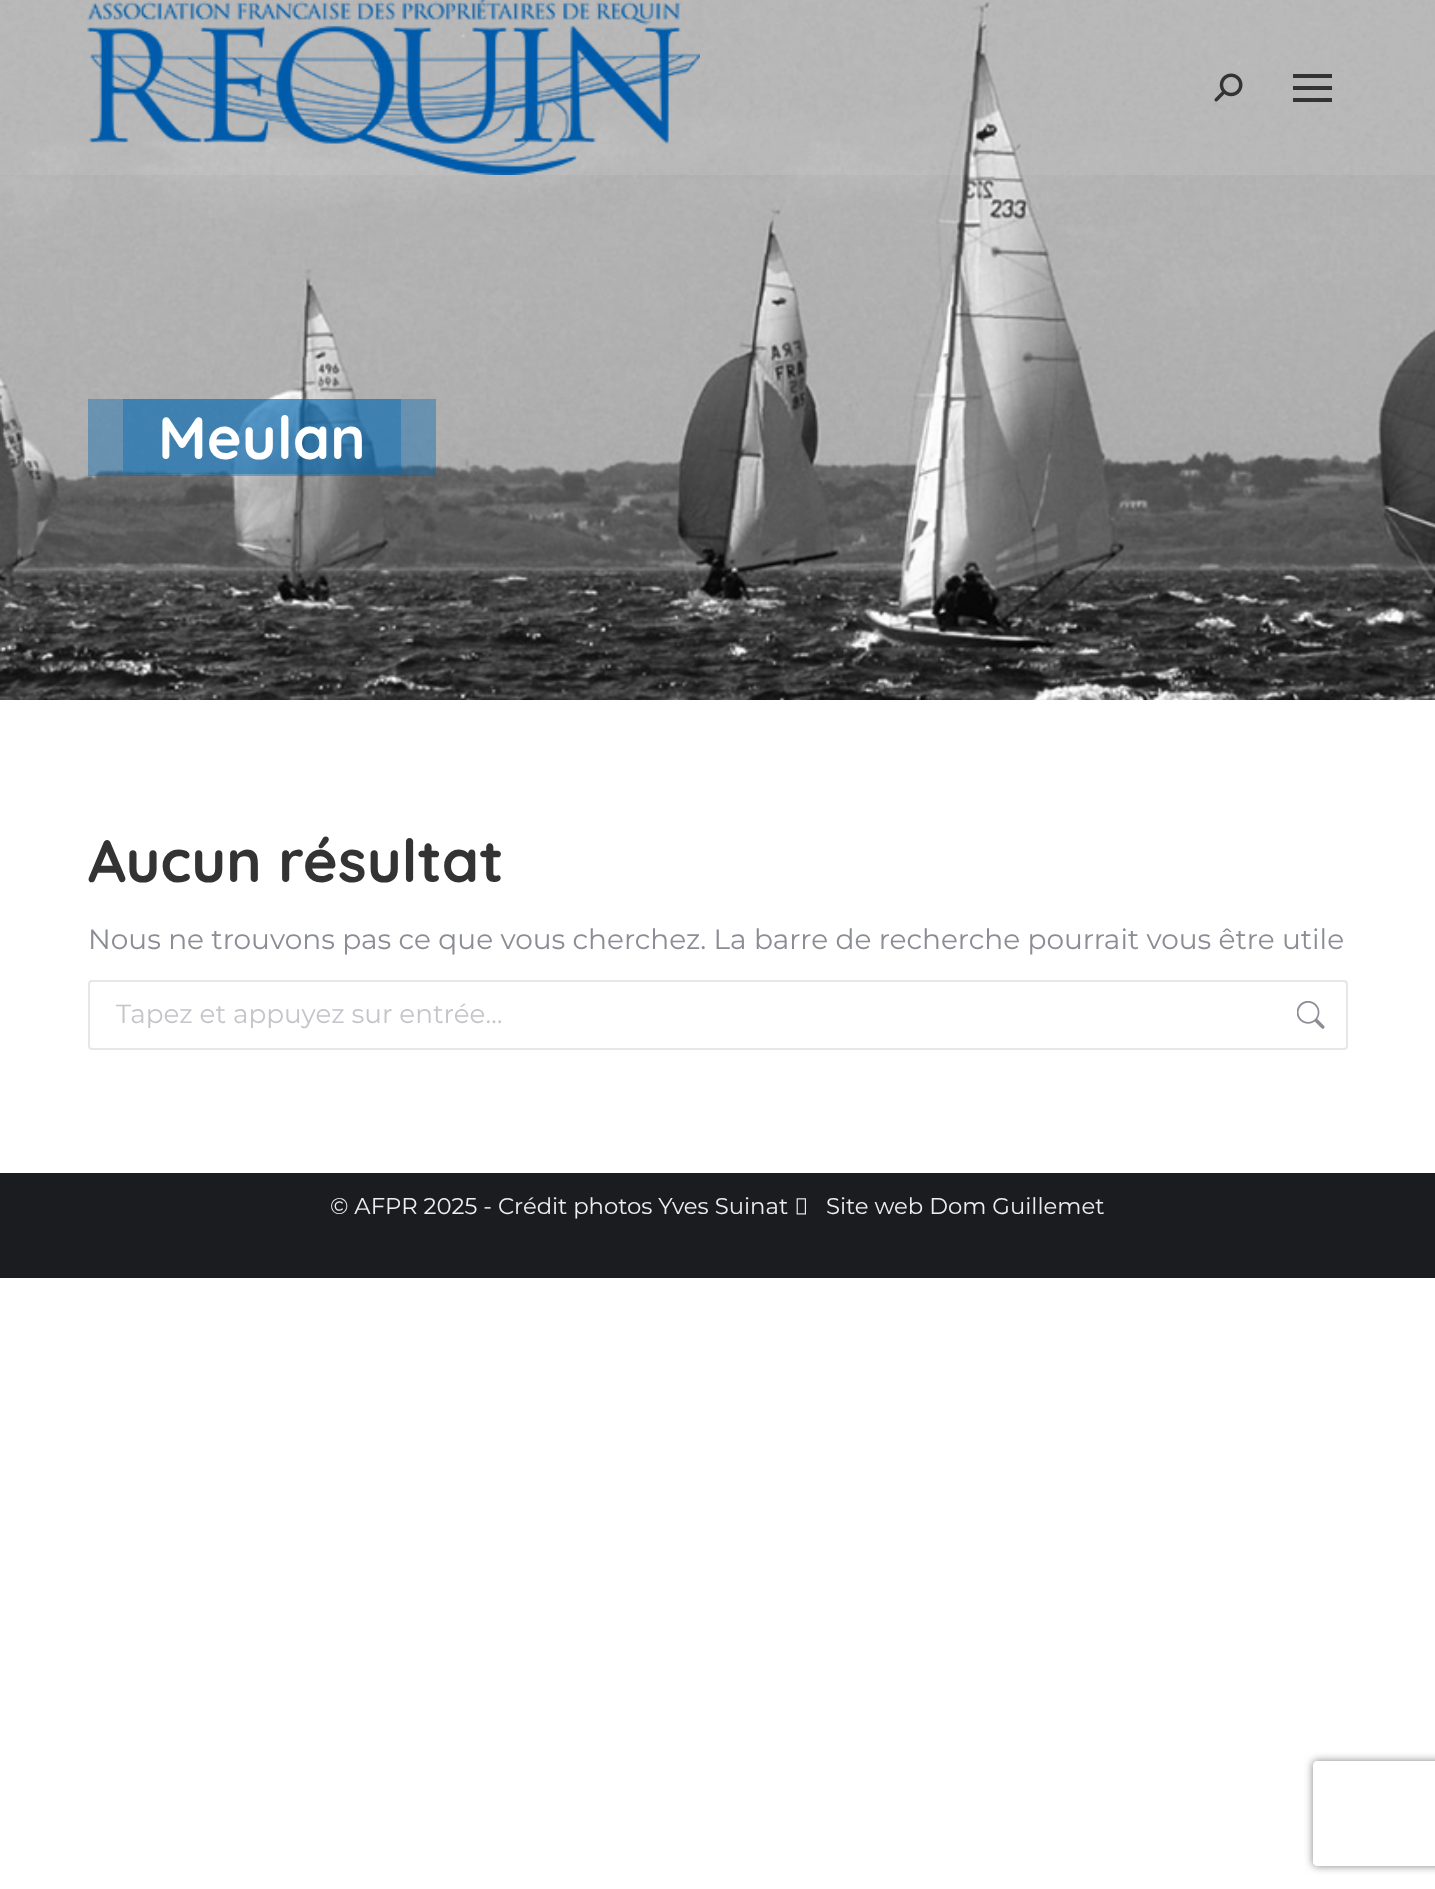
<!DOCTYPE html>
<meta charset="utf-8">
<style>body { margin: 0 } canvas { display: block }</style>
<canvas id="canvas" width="1435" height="1889"></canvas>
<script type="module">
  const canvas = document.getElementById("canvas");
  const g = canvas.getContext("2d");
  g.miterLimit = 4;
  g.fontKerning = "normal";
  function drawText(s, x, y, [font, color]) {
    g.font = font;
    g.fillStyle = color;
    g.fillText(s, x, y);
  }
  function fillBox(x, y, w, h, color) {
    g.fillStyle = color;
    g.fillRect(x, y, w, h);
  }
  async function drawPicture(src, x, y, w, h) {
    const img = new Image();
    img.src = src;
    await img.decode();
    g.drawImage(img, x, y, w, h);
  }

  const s1 = ["bold 59.5px Quicksand", "#FFFFFF"];
  const s2 = ["bold 59.5px Quicksand", "#333333"];
  const s3 = ["28px Montserrat", "#8B8D94"];
  const s4 = ["26.25px Montserrat", "#C4C5C9"];
  const s5 = ["22.75px Montserrat", "#EEEEEE"];

  fillBox(0, 0, 1435, 1889, "#FFFFFF");
  await drawPicture("pic3.png", 0, 0, 1435, 700);
  fillBox(0, 0, 1435, 175, "rgba(255, 255, 255, 0.08)");
  await drawPicture("pic1.png", 87, 0, 613, 175);
  await drawPicture("pic2.png", 1214, 73, 29, 29);
  fillBox(1293, 74, 39, 4, "#333333");
  fillBox(1293, 86, 39, 4, "#333333");
  fillBox(1293, 98, 39, 4, "#333333");
  fillBox(88, 399, 348, 77, "rgba(0, 102, 177, 0.4)");
  fillBox(123, 399, 278, 75, "rgba(0, 102, 177, 0.4)");
  drawText("Meulan", 158, 459, s1);
  drawText("Aucun résultat", 88, 882, s2);
  drawText("Nous ne trouvons pas ce que vous cherchez. La barre de recherche pourrait vous être utile", 88, 949, s3);
  g.beginPath();
  g.roundRect(89, 981, 1258, 68, 3);
  g.strokeStyle = "#E7E7E7";
  g.lineWidth = 2;
  g.stroke();
  g.save();
  g.beginPath();
  g.rect(116, 996, 1177, 33);
  g.clip();
  drawText("Tapez et appuyez sur entrée…", 116, 1023, s4);
  g.restore();
  await drawPicture("pic4.png", 1297, 1001, 28, 28);
  fillBox(0, 1173, 1435, 105, "#1A1C20");
  drawText("© AFPR 2025 - Crédit photos Yves Suinat", 330, 1214, s5);
  await drawPicture("pic5.png", 796, 1198, 10, 17);
  drawText("Site web Dom Guillemet", 826, 1214, s5);
  g.save();
  g.beginPath();
  g.moveTo(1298, 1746);
  g.lineTo(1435, 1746);
  g.lineTo(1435, 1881);
  g.lineTo(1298, 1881);
  g.closePath();
  g.moveTo(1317, 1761);
  g.lineTo(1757, 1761);
  g.bezierCurveTo(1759, 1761, 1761, 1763, 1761, 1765);
  g.lineTo(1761, 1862);
  g.bezierCurveTo(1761, 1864, 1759, 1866, 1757, 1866);
  g.lineTo(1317, 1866);
  g.bezierCurveTo(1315, 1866, 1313, 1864, 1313, 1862);
  g.lineTo(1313, 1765);
  g.bezierCurveTo(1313, 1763, 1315, 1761, 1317, 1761);
  g.closePath();
  g.clip("evenodd");
  g.fillStyle = "#808080";
  g.filter = "blur(4.5px)";
  g.beginPath();
  g.roundRect(1313, 1761, 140, 105, 4);
  g.fill();
  g.filter = "none";
  g.restore();
</script>
